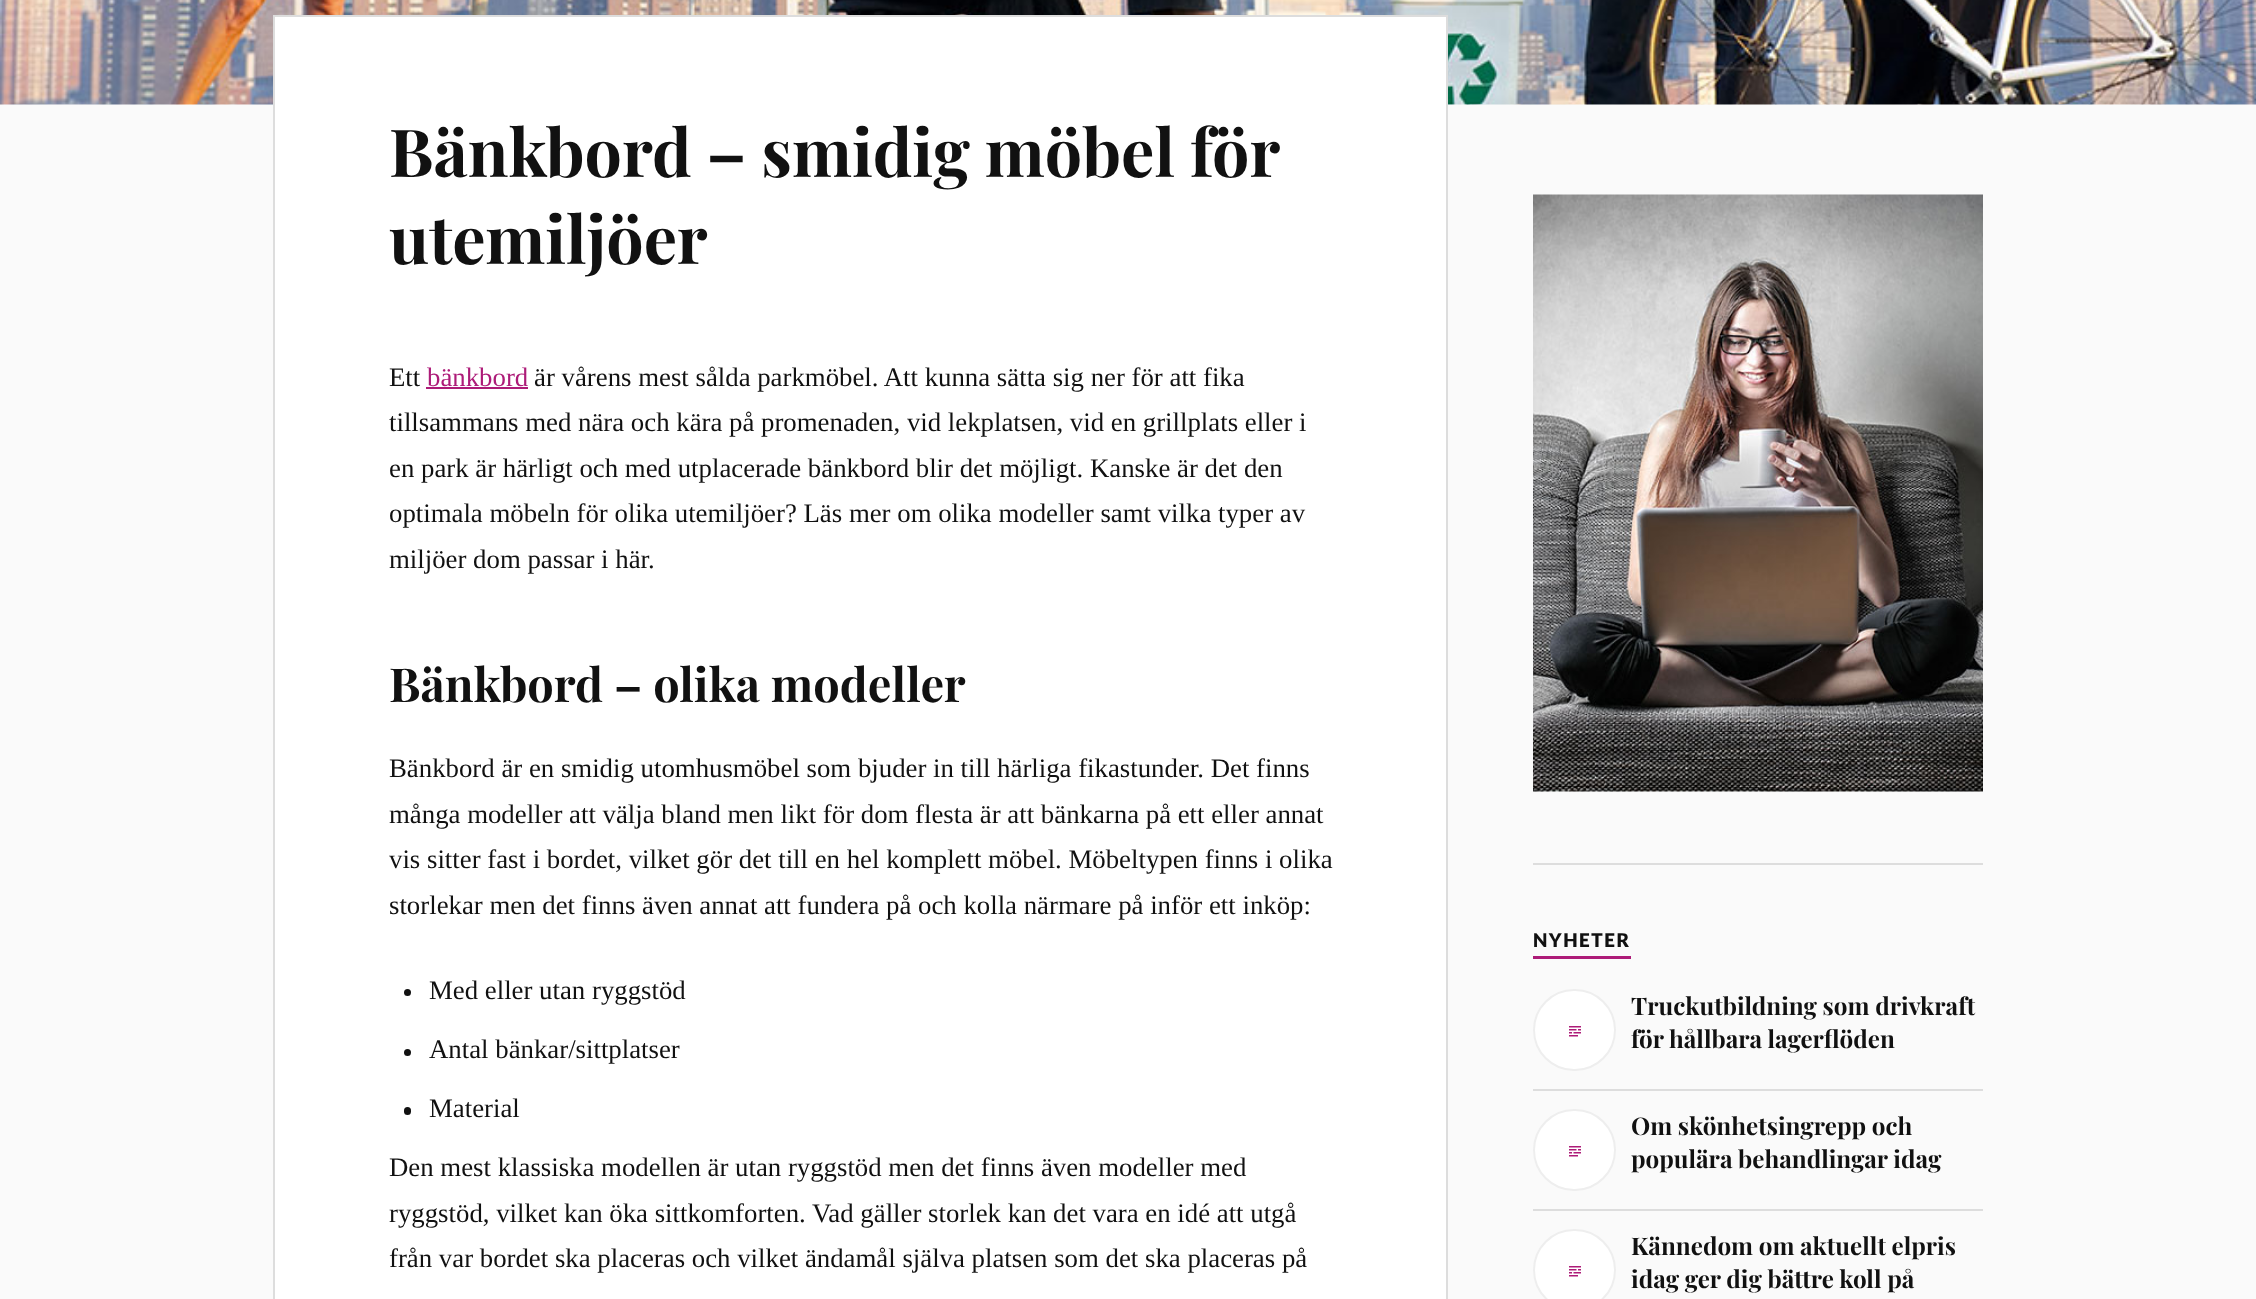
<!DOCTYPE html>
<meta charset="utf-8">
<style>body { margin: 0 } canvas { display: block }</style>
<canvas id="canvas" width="2256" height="1299"></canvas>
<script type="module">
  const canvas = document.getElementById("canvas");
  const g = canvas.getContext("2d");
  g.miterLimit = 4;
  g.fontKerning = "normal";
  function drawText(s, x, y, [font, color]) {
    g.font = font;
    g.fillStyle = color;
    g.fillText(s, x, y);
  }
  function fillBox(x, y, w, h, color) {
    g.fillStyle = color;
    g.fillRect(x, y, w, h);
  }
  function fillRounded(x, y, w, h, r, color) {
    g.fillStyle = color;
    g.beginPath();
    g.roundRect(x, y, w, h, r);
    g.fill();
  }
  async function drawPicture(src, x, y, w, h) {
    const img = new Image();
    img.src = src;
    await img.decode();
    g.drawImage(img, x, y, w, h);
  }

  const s1 = ["bold 66.25px Playfair Display", "#111111"];
  const s2 = ["26.8px Liberation Serif", "#111111"];
  const s3 = ["26.8px Liberation Serif", "#AD1B78"];
  const s4 = ["bold 46.9px Playfair Display", "#111111"];
  const s5 = ["900 19px Lato", "#111111"];
  const s6 = ["bold 24.25px Playfair Display", "#111111"];

  fillBox(0, 0, 2256, 1299, "#FAFAFA");
  await drawPicture("pic1.png", 0, 0, 2256, 105);
  g.fillStyle = "#FFFFFF";
  g.beginPath();
  g.rect(274, 16, 1173, 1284);
  g.fill();
  g.strokeStyle = "#DDDDDD";
  g.lineWidth = 2;
  g.stroke();
  g.wordSpacing = "-0.5px";
  drawText("Bänkbord – smidig möbel för", 389, 177, s1);
  g.wordSpacing = "0px";
  drawText("utemiljöer", 389, 264, s1);
  drawText("Ett", 389, 386, s2);
  drawText("bänkbord", 427, 386, s3);
  fillBox(426, 387, 102, 2, "#AD1B78");
  drawText("är vårens mest sålda parkmöbel. Att kunna sätta sig ner för att fika", 534, 386, s2);
  drawText("tillsammans med nära och kära på promenaden, vid lekplatsen, vid en grillplats eller i", 389, 431, s2);
  drawText("en park är härligt och med utplacerade bänkbord blir det möjligt. Kanske är det den", 389, 477, s2);
  drawText("optimala möbeln för olika utemiljöer? Läs mer om olika modeller samt vilka typer av", 389, 522, s2);
  drawText("miljöer dom passar i här.", 389, 568, s2);
  drawText("Bänkbord – olika modeller", 389, 702, s4);
  drawText("Bänkbord är en smidig utomhusmöbel som bjuder in till härliga fikastunder. Det finns", 389, 777, s2);
  drawText("många modeller att välja bland men likt för dom flesta är att bänkarna på ett eller annat", 389, 823, s2);
  drawText("vis sitter fast i bordet, vilket gör det till en hel komplett möbel. Möbeltypen finns i olika", 389, 868, s2);
  drawText("storlekar men det finns även annat att fundera på och kolla närmare på inför ett inköp:", 389, 914, s2);
  g.beginPath();
  g.arc(407.5, 992.5, 3.5, 0, Math.PI * 2);
  g.fill();
  drawText("Med eller utan ryggstöd", 429, 999, s2);
  g.beginPath();
  g.arc(407.5, 1052.5, 3.5, 0, Math.PI * 2);
  g.fill();
  drawText("Antal bänkar/sittplatser", 429, 1058, s2);
  fillRounded(404, 1107, 7, 8, 3.5, "#111111");
  drawText("Material", 429, 1117, s2);
  drawText("Den mest klassiska modellen är utan ryggstöd men det finns även modeller med", 389, 1176, s2);
  drawText("ryggstöd, vilket kan öka sittkomforten. Vad gäller storlek kan det vara en idé att utgå", 389, 1222, s2);
  drawText("från var bordet ska placeras och vilket ändamål själva platsen som det ska placeras på", 389, 1267, s2);
  await drawPicture("pic2.png", 1533, 194, 450, 598);
  fillBox(1533, 863, 450, 2, "#DDDDDD");
  fillBox(1533, 956, 98, 3, "#AD1B78");
  g.letterSpacing = "1.5px";
  drawText("NYHETER", 1533, 947, s5);
  fillBox(1533, 1089, 450, 2, "#DDDDDD");
  g.fillStyle = "#FFFFFF";
  g.beginPath();
  g.roundRect(1534, 990, 81, 80, 40);
  g.fill();
  g.strokeStyle = "#EEEEEE";
  g.stroke();
  await drawPicture("pic3.png", 1569, 1026, 12, 11);
  g.letterSpacing = "0px";
  drawText("Truckutbildning som drivkraft", 1631, 1015, s6);
  drawText("för hållbara lagerflöden", 1631, 1048, s6);
  fillBox(1533, 1209, 450, 2, "#DDDDDD");
  g.fillStyle = "#FFFFFF";
  g.beginPath();
  g.roundRect(1534, 1110, 81, 80, 40);
  g.fill();
  g.stroke();
  await drawPicture("pic3.png", 1569, 1146, 12, 11);
  drawText("Om skönhetsingrepp och", 1631, 1135, s6);
  drawText("populära behandlingar idag", 1631, 1168, s6);
  g.fillStyle = "#FFFFFF";
  g.beginPath();
  g.roundRect(1534, 1230, 81, 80, 40);
  g.fill();
  g.stroke();
  await drawPicture("pic3.png", 1569, 1266, 12, 11);
  drawText("Kännedom om aktuellt elpris", 1631, 1255, s6);
  drawText("idag ger dig bättre koll på", 1631, 1288, s6);
</script>
